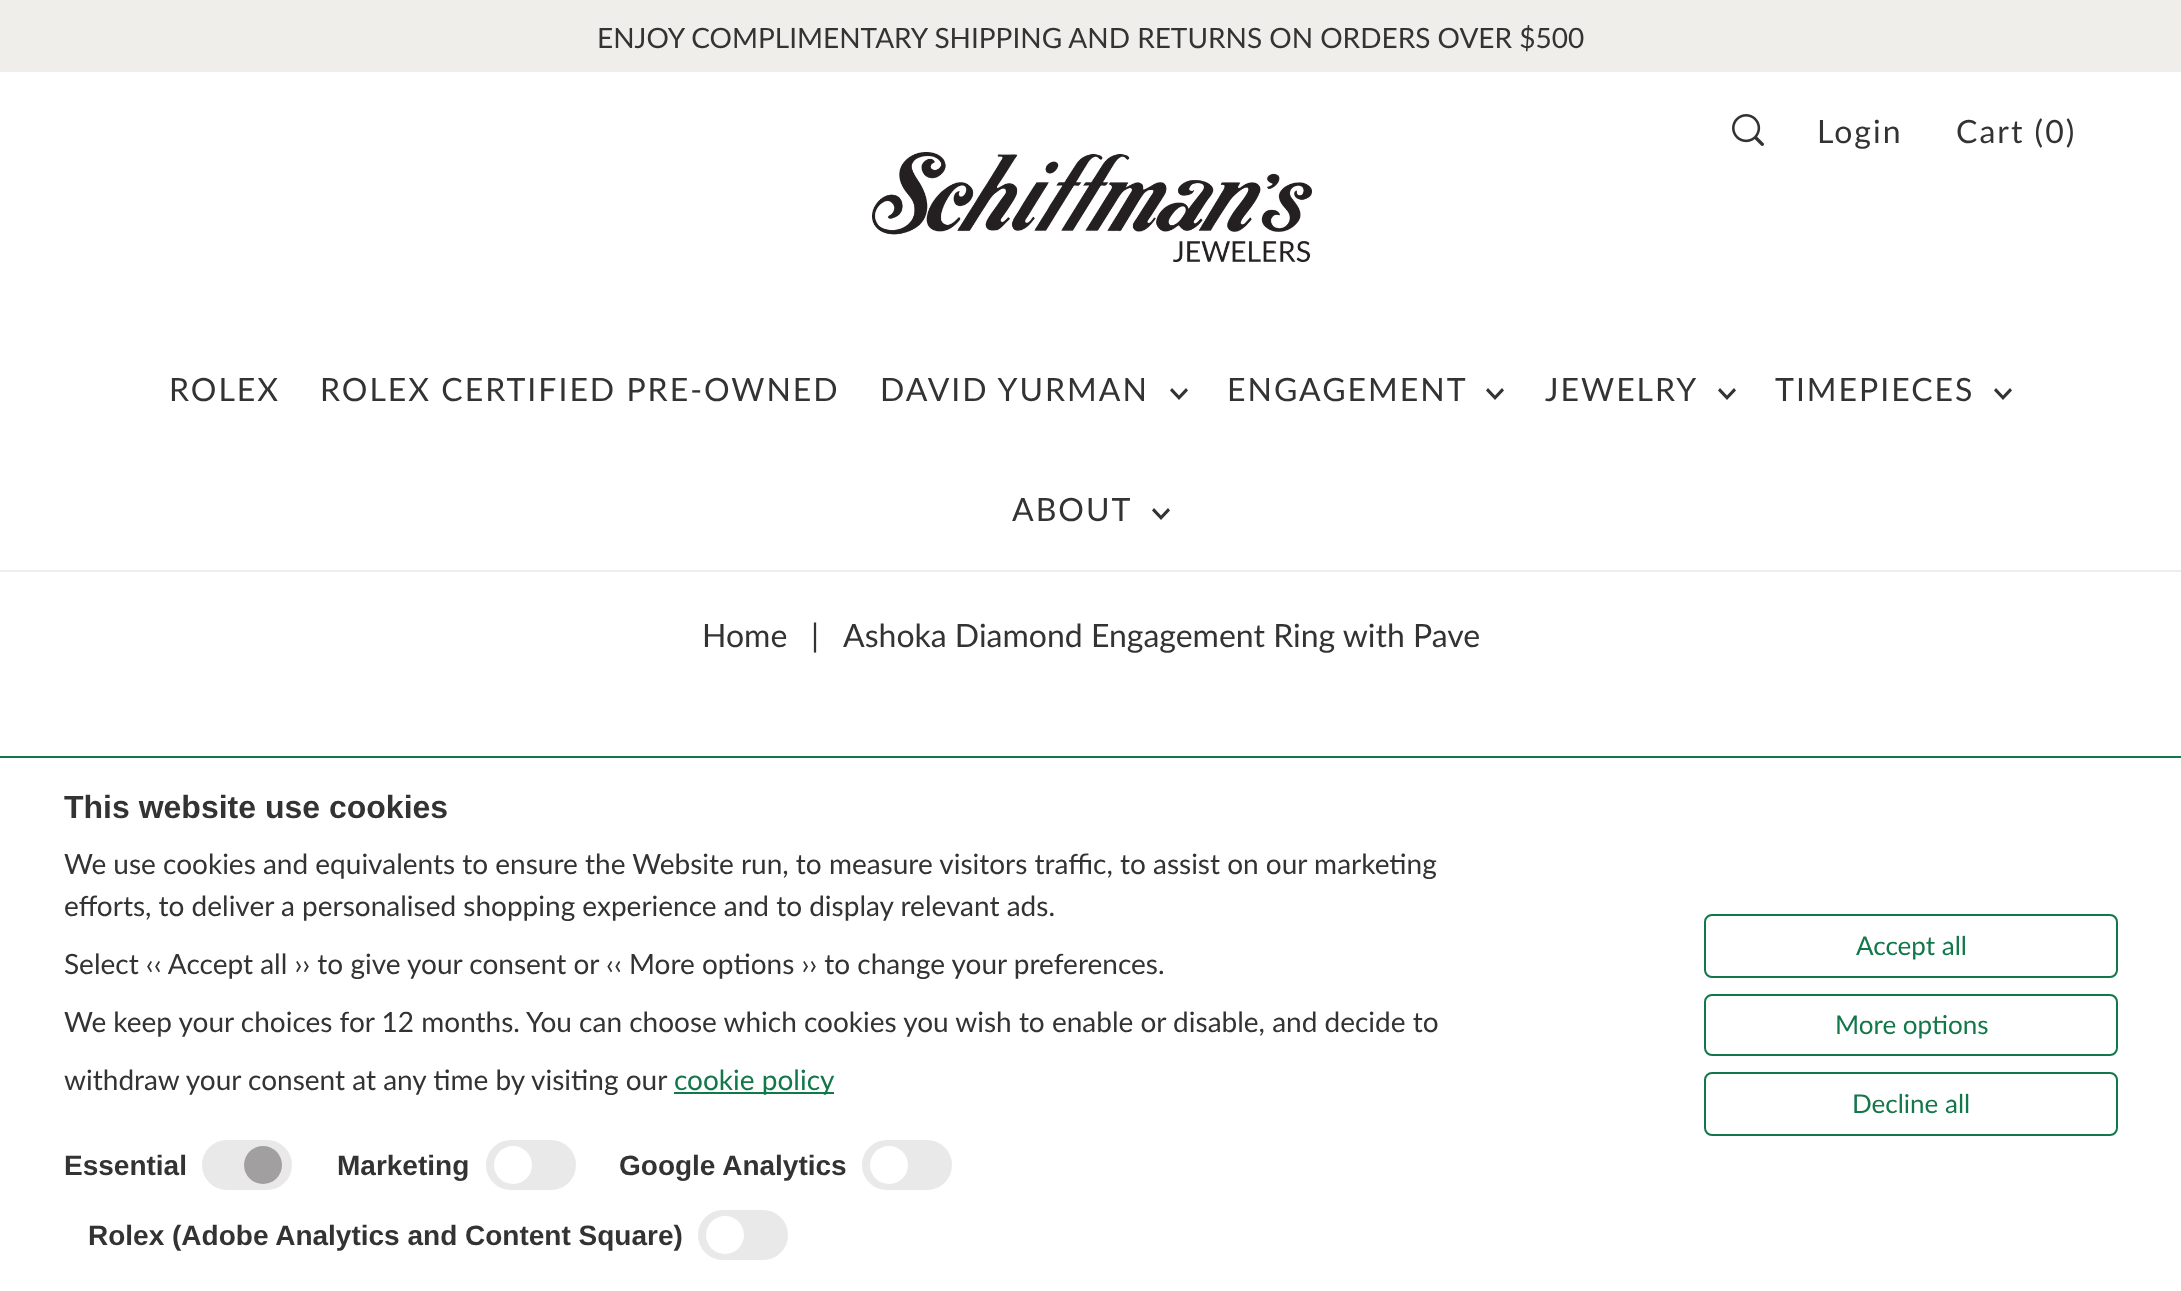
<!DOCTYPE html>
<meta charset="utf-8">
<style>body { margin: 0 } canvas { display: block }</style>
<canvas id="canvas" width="2181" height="1291"></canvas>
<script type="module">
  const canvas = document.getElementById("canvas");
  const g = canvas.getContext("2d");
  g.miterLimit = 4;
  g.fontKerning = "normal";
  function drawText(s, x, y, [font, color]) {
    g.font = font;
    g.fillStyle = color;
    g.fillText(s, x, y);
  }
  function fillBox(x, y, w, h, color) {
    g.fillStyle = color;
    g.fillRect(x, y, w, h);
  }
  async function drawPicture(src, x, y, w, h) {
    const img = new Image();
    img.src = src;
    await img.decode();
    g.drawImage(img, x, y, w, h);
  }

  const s1 = ["28px Lato", "#333333"];
  const s2 = ["32px Lato", "#333333"];
  const s3 = ["bold 32px Liberation Sans", "#333333"];
  const s4 = ["28px Lato", "#127749"];
  const s5 = ["bold 28px Liberation Sans", "#333333"];
  const s6 = ["26px Lato", "#127749"];

  fillBox(0, 0, 2181, 1291, "#FFFFFF");
  fillBox(0, 0, 2181, 72, "#F0EEEA");
  drawText("ENJOY COMPLIMENTARY SHIPPING AND RETURNS ON ORDERS OVER $500", 597, 48, s1);
  fillBox(0, 570, 2181, 2, "#F0EEEA");
  await drawPicture("pic1.png", 1732, 114, 32, 32);
  g.letterSpacing = "2px";
  drawText("Login", 1817, 143, s2);
  drawText("Cart (0)", 1956, 143, s2);
  await drawPicture("pic2.png", 872, 152, 440, 110);
  drawText("ROLEX", 169, 401, s2);
  drawText("ROLEX CERTIFIED PRE-OWNED", 320, 401, s2);
  drawText("DAVID YURMAN", 880, 401, s2);
  g.beginPath();
  g.moveTo(1186, 388);
  g.lineTo(1179, 395.5);
  g.lineTo(1172, 388);
  g.lineTo(1170, 390.5);
  g.lineTo(1179, 400);
  g.lineTo(1188, 390.5);
  g.closePath();
  g.fill();
  drawText("ENGAGEMENT", 1227, 401, s2);
  g.beginPath();
  g.moveTo(1502, 388);
  g.lineTo(1495, 395.5);
  g.lineTo(1488, 388);
  g.lineTo(1486, 390.5);
  g.lineTo(1495, 400);
  g.lineTo(1504, 390.5);
  g.closePath();
  g.fill();
  drawText("JEWELRY", 1545, 401, s2);
  g.beginPath();
  g.moveTo(1734, 388);
  g.lineTo(1727, 395.5);
  g.lineTo(1720, 388);
  g.lineTo(1718, 390.5);
  g.lineTo(1727, 400);
  g.lineTo(1736, 390.5);
  g.closePath();
  g.fill();
  drawText("TIMEPIECES", 1775, 401, s2);
  g.beginPath();
  g.moveTo(2010, 388);
  g.lineTo(2003, 395.5);
  g.lineTo(1996, 388);
  g.lineTo(1994, 390.5);
  g.lineTo(2003, 400);
  g.lineTo(2012, 390.5);
  g.closePath();
  g.fill();
  drawText("ABOUT", 1012, 521, s2);
  g.beginPath();
  g.moveTo(1168, 508);
  g.lineTo(1161, 515.5);
  g.lineTo(1154, 508);
  g.lineTo(1152, 510.5);
  g.lineTo(1161, 520);
  g.lineTo(1170, 510.5);
  g.closePath();
  g.fill();
  g.letterSpacing = "0px";
  drawText("Home", 702, 647, s2);
  drawText("|", 811, 647, s2);
  drawText("Ashoka Diamond Engagement Ring with Pave", 843, 647, s2);
  fillBox(0, 756, 2181, 2, "#127749");
  drawText("This website use cookies", 64, 818, s3);
  drawText("We use cookies and equivalents to ensure the Website run, to measure visitors traffic, to assist on our marketing", 64, 874, s1);
  drawText("efforts, to deliver a personalised shopping experience and to display relevant ads.", 64, 916, s1);
  drawText("Select ‹‹ Accept all ›› to give your consent or ‹‹ More options ›› to change your preferences.", 64, 974, s1);
  drawText("We keep your choices for 12 months. You can choose which cookies you wish to enable or disable, and decide to", 64, 1032, s1);
  drawText("withdraw your consent at any time by visiting our", 64, 1090, s1);
  fillBox(674, 1092, 160, 2, "#127749");
  drawText("cookie policy", 674, 1090, s4);
  drawText("Essential", 64, 1175, s5);
  g.fillStyle = "#E9E9E9";
  g.beginPath();
  g.roundRect(203, 1141, 88, 48, 24);
  g.fill();
  g.strokeStyle = "#E9E9E9";
  g.lineWidth = 2;
  g.stroke();
  g.fillStyle = "#A19F9F";
  g.beginPath();
  g.arc(263, 1165, 19, 0, Math.PI * 2);
  g.fill();
  drawText("Marketing", 337, 1175, s5);
  g.fillStyle = "#E9E9E9";
  g.beginPath();
  g.roundRect(487, 1141, 88, 48, 24);
  g.fill();
  g.stroke();
  g.fillStyle = "#FFFFFF";
  g.beginPath();
  g.arc(513, 1165, 19, 0, Math.PI * 2);
  g.fill();
  drawText("Google Analytics", 619, 1175, s5);
  g.fillStyle = "#E9E9E9";
  g.beginPath();
  g.roundRect(863, 1141, 88, 48, 24);
  g.fill();
  g.stroke();
  g.fillStyle = "#FFFFFF";
  g.beginPath();
  g.arc(889, 1165, 19, 0, Math.PI * 2);
  g.fill();
  drawText("Rolex (Adobe Analytics and Content Square)", 88, 1245, s5);
  g.fillStyle = "#E9E9E9";
  g.beginPath();
  g.roundRect(699, 1211, 88, 48, 24);
  g.fill();
  g.stroke();
  g.fillStyle = "#FFFFFF";
  g.beginPath();
  g.arc(725, 1235, 19, 0, Math.PI * 2);
  g.fill();
  g.beginPath();
  g.roundRect(1705, 915, 412, 62, 7);
  g.strokeStyle = "#127749";
  g.stroke();
  drawText("Accept all", 1856, 955, s6);
  g.beginPath();
  g.roundRect(1705, 995, 412, 60, 7);
  g.stroke();
  drawText("More options", 1835, 1034, s6);
  g.beginPath();
  g.roundRect(1705, 1073, 412, 62, 7);
  g.stroke();
  drawText("Decline all", 1852, 1113, s6);
</script>
